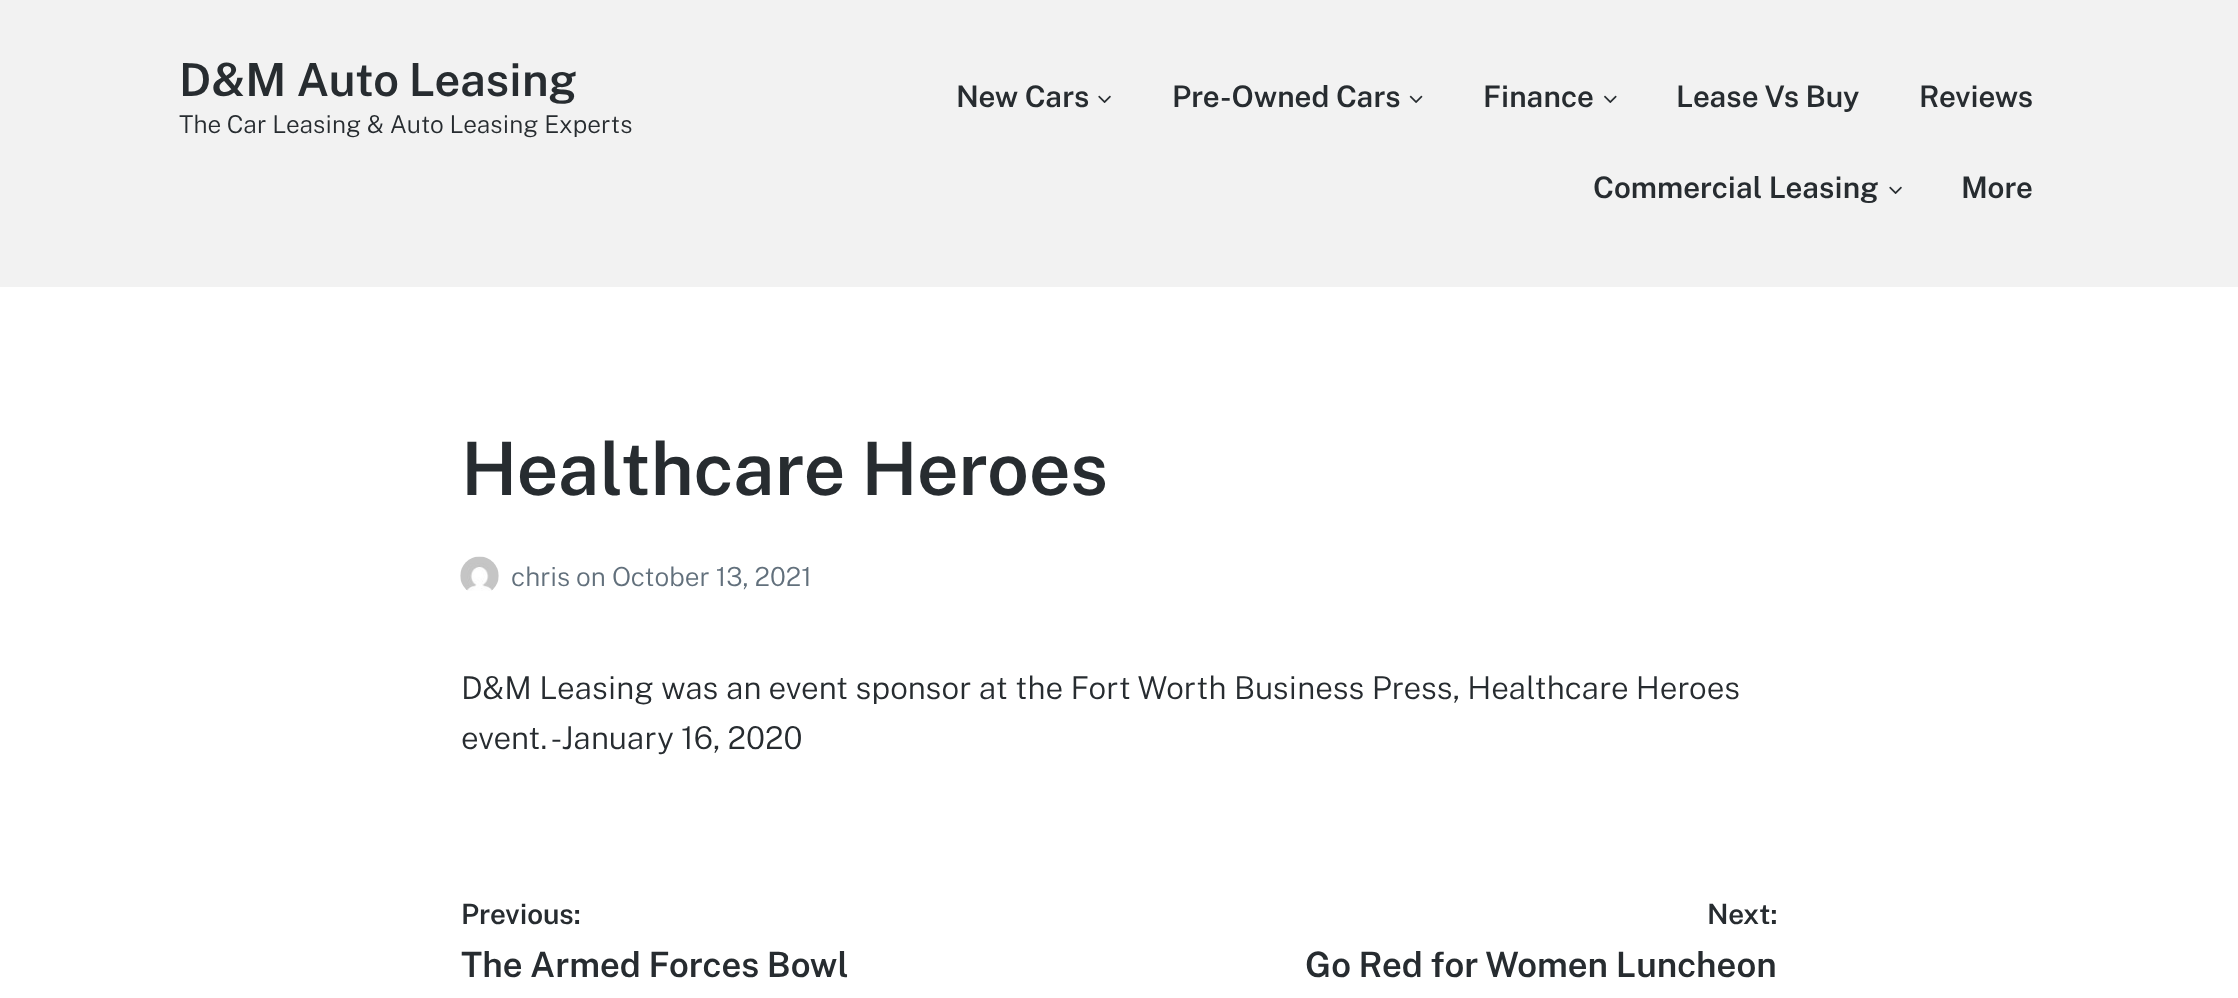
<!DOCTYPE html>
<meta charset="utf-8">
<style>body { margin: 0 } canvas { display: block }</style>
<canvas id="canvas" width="2238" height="998"></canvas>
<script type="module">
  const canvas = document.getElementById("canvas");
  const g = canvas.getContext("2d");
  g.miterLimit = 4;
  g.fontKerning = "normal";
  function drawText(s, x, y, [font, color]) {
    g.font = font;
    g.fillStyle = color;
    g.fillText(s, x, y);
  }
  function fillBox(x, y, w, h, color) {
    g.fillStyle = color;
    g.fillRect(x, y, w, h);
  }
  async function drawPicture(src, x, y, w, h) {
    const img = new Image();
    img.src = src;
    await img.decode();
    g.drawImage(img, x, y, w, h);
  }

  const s1 = ["600 45.5px Public Sans", "#272C30"];
  const s2 = ["300 24.5px Public Sans", "#272C30"];
  const s3 = ["600 29.75px Public Sans", "#272C30"];
  const s4 = ["600 73.5px Public Sans", "#272C30"];
  const s5 = ["300 26.25px Public Sans", "#62707C"];
  const s6 = ["300 31.5px Public Sans", "#272C30"];
  const s7 = ["600 28px Public Sans", "#272C30"];
  const s8 = ["600 35px Public Sans", "#272C30"];

  fillBox(0, 0, 2238, 998, "#FFFFFF");
  fillBox(0, 0, 2238, 287, "#F2F2F2");
  drawText("D&M Auto Leasing", 179, 96, s1);
  drawText("The Car Leasing & Auto Leasing Experts", 179, 133, s2);
  drawText("New Cars", 956, 107, s3);
  await drawPicture("pic1.png", 1098, 95, 13, 8);
  drawText("Pre-Owned Cars", 1172, 107, s3);
  await drawPicture("pic2.png", 1409, 95, 14, 8);
  drawText("Finance", 1483, 107, s3);
  await drawPicture("pic3.png", 1604, 95, 13, 8);
  drawText("Lease Vs Buy", 1676, 107, s3);
  drawText("Reviews", 1919, 107, s3);
  drawText("Commercial Leasing", 1593, 198, s3);
  await drawPicture("pic1.png", 1889, 186, 13, 8);
  drawText("More", 1961, 198, s3);
  drawText("Healthcare Heroes", 461, 495, s4);
  await drawPicture("pic4.png", 460, 556, 39, 35);
  drawText("chris", 511, 586, s5);
  drawText("on October 13, 2021", 576, 586, s5);
  drawText("D&M Leasing was an event sponsor at the Fort Worth Business Press, Healthcare Heroes", 461, 699, s6);
  drawText("event. -January 16, 2020", 461, 749, s6);
  drawText("Previous:", 461, 924, s7);
  drawText("The Armed Forces Bowl", 461, 977, s8);
  drawText("Next:", 1707, 924, s7);
  drawText("Go Red for Women Luncheon", 1305, 977, s8);
</script>
